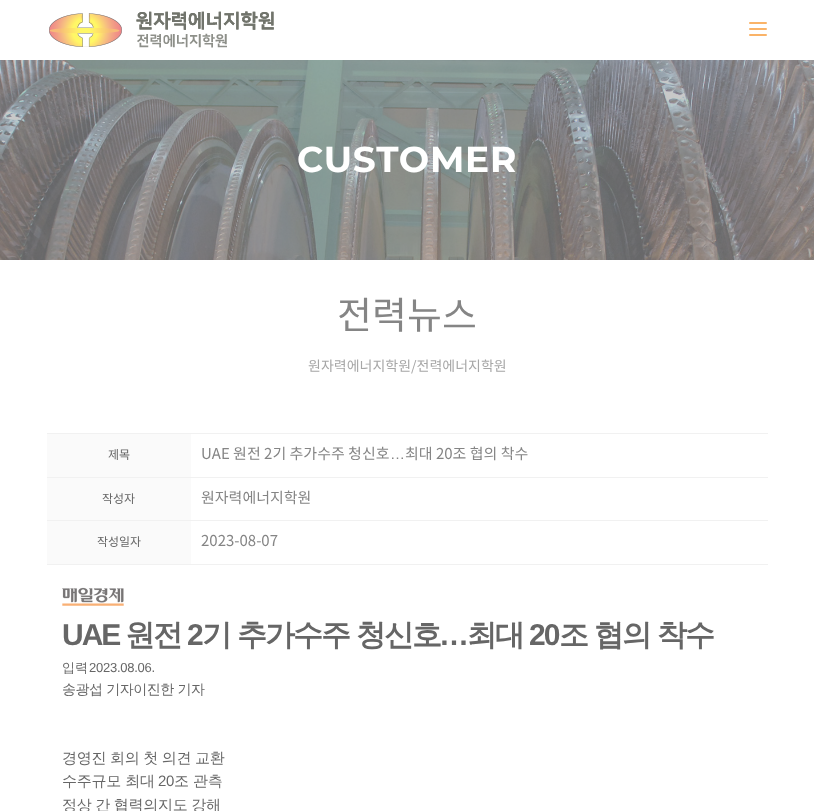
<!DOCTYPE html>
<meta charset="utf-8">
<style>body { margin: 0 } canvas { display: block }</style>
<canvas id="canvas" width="814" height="811"></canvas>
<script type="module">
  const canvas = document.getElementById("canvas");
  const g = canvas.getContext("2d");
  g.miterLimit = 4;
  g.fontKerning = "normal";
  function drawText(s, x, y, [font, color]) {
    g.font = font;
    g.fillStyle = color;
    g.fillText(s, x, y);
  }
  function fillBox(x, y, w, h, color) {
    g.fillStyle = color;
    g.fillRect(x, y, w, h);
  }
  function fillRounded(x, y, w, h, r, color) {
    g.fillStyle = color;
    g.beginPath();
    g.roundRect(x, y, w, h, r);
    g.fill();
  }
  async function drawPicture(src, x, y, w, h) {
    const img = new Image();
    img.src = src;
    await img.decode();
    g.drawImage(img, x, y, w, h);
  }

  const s1 = ["bold 36px Montserrat", "#FFFFFF"];
  const s2 = ["38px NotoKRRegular", "#858585"];
  const s3 = ["14px NotoKRRegular", "#A7A7A7"];
  const s4 = ["12px NotoKRRegular", "#666666"];
  const s5 = ["15px NotoKRRegular", "#858585"];
  const s6 = ["15px Liberation Sans", "#858585"];
  const s7 = ["bold 30px Liberation Sans", "#666666"];
  const s8 = ["bold 30px WenQuanYi Zen Hei", "#666666"];
  const s9 = ["500 13px WenQuanYi Zen Hei", "#666666"];
  const s10 = ["13px Liberation Sans", "#666666"];
  const s11 = ["500 14px WenQuanYi Zen Hei", "#666666"];
  const s12 = ["500 15px WenQuanYi Zen Hei", "#666666"];
  const s13 = ["15px Liberation Sans", "#666666"];

  fillBox(0, 0, 814, 811, "#FFFFFF");
  await drawPicture("pic1.png", 49, 11, 225, 37);
  fillRounded(749, 22, 18, 2, 1, "#FAB368");
  fillRounded(749, 28, 18, 2, 1, "#FAB368");
  fillRounded(749, 34, 18, 2, 1, "#FAB368");
  await drawPicture("pic2.png", 0, 60, 814, 200);
  g.letterSpacing = "0.75px";
  drawText("CUSTOMER", 297, 172, s1);
  g.letterSpacing = "0px";
  drawText("전력뉴스", 337, 329, s2);
  drawText("원자력에너지학원/전력에너지학원", 308, 371, s3);
  fillBox(47, 433, 721, 1, "#F1F1F1");
  fillBox(47, 434, 144, 43, "#FAFAFA");
  drawText("제목", 108, 459, s4);
  drawText("UAE 원전 2기 추가수주 청신호", 201, 459, s5);
  drawText("…", 390, 459, s6);
  drawText("최대 20조 협의 착수", 405, 459, s5);
  fillBox(47, 478, 144, 42, "#FAFAFA");
  drawText("작성자", 102, 503, s4);
  fillBox(47, 477, 721, 1, "#F1F1F1");
  drawText("원자력에너지학원", 201, 503, s5);
  fillBox(47, 521, 144, 43, "#FAFAFA");
  drawText("작성일자", 97, 546, s4);
  fillBox(47, 520, 721, 1, "#F1F1F1");
  drawText("2023-08-07", 201, 546, s5);
  fillBox(47, 564, 721, 1, "#F1F1F1");
  await drawPicture("pic3.png", 62, 587, 62, 19);
  g.letterSpacing = "-2px";
  drawText("UAE", 62, 645, s7);
  drawText("원전", 125, 645, s8);
  drawText("2", 187, 645, s7);
  drawText("기 추가수주 청신호", 202, 645, s8);
  drawText("…", 439, 645, s7);
  drawText("최대", 467, 645, s8);
  drawText("20", 529, 645, s7);
  drawText("조 협의 착수", 559, 645, s8);
  g.letterSpacing = "0px";
  drawText("입력", 62, 672, s9);
  g.letterSpacing = "-0.25px";
  drawText("2023.08.06.", 89, 672, s10);
  g.letterSpacing = "-0.5px";
  drawText("송광섭 기자이진한 기자", 62, 694, s11);
  g.letterSpacing = "-0.25px";
  g.wordSpacing = "-0.5px";
  drawText("경영진 회의 첫 의견 교환", 62, 763, s12);
  g.wordSpacing = "0px";
  drawText("수주규모 최대", 62, 786, s12);
  drawText("20", 158, 786, s13);
  drawText("조 관측", 174, 786, s12);
  g.wordSpacing = "-0.5px";
  drawText("정상 간 협력의지도 강해", 62, 810, s12);
</script>
